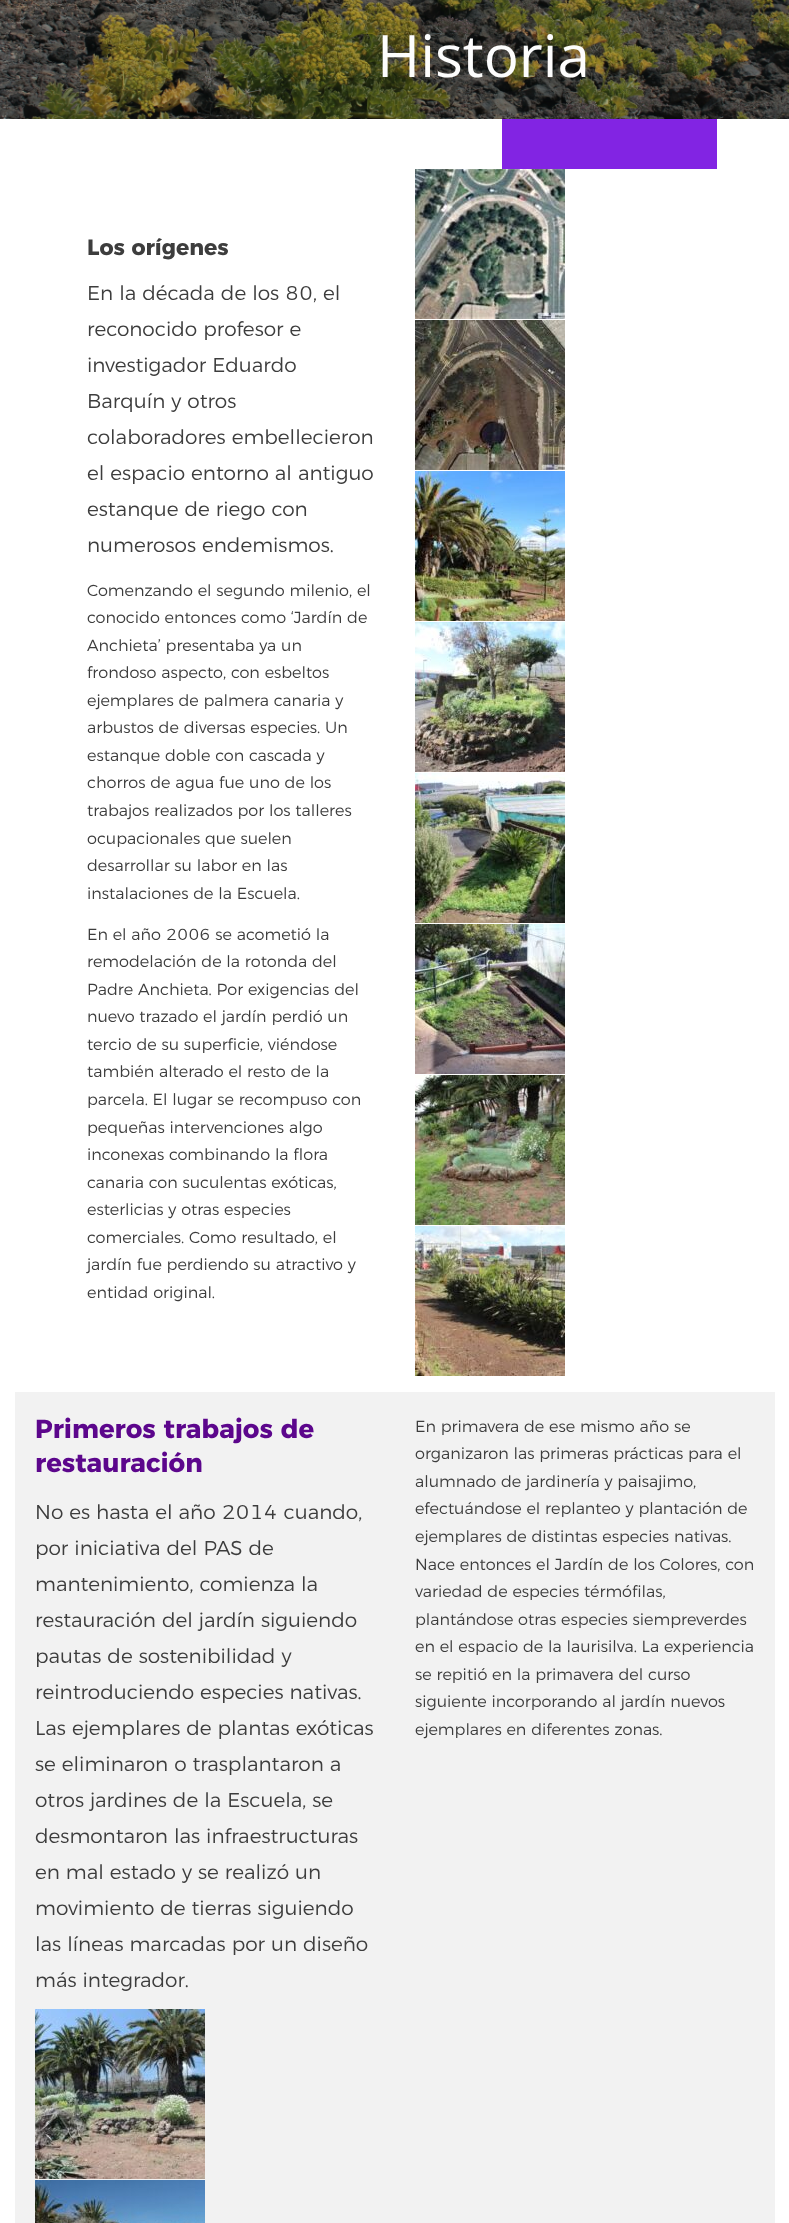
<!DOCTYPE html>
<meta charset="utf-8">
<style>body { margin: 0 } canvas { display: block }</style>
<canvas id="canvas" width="789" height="2223"></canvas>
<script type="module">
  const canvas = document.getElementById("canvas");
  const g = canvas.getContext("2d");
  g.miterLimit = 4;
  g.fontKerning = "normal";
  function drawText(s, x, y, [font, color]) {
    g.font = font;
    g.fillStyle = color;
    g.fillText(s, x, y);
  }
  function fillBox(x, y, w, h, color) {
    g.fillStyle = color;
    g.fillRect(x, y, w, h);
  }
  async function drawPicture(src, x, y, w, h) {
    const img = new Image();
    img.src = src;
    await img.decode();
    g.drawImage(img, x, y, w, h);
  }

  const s1 = ["58.5px Open Sans", "#FDFDFD"];
  const s2 = ["bold 22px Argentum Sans", "#3D3D3D"];
  const s3 = ["300 20px Argentum Sans", "#3D3D3D"];
  const s4 = ["300 16px Argentum Sans", "#3D3D3D"];
  const s5 = ["bold 26px Argentum Sans", "#5C068C"];

  fillBox(0, 0, 789, 2223, "#FFFFFF");
  await drawPicture("pic1.png", 0, 0, 789, 119);
  drawText("Historia", 377, 77, s1);
  fillBox(502, 119, 215, 50, "#8224E3");
  drawText("Los orígenes", 87, 255, s2);
  drawText("En la década de los 80, el", 87, 300, s3);
  drawText("reconocido profesor e", 87, 336, s3);
  drawText("investigador Eduardo", 87, 372, s3);
  drawText("Barquín y otros", 87, 408, s3);
  drawText("colaboradores embellecieron", 87, 444, s3);
  drawText("el espacio entorno al antiguo", 87, 480, s3);
  drawText("estanque de riego con", 87, 516, s3);
  drawText("numerosos endemismos.", 87, 552, s3);
  drawText("Comenzando el segundo milenio, el", 87, 596, s4);
  drawText("conocido entonces como ‘Jardín de", 87, 623, s4);
  drawText("Anchieta’ presentaba ya un", 87, 651, s4);
  drawText("frondoso aspecto, con esbeltos", 87, 678, s4);
  drawText("ejemplares de palmera canaria y", 87, 706, s4);
  drawText("arbustos de diversas especies. Un", 87, 733, s4);
  drawText("estanque doble con cascada y", 87, 761, s4);
  drawText("chorros de agua fue uno de los", 87, 788, s4);
  drawText("trabajos realizados por los talleres", 87, 816, s4);
  drawText("ocupacionales que suelen", 87, 844, s4);
  drawText("desarrollar su labor en las", 87, 871, s4);
  drawText("instalaciones de la Escuela.", 87, 899, s4);
  drawText("En el año 2006 se acometió la", 87, 940, s4);
  drawText("remodelación de la rotonda del", 87, 967, s4);
  drawText("Padre Anchieta. Por exigencias del", 87, 995, s4);
  drawText("nuevo trazado el jardín perdió un", 87, 1022, s4);
  drawText("tercio de su superficie, viéndose", 87, 1050, s4);
  drawText("también alterado el resto de la", 87, 1077, s4);
  drawText("parcela. El lugar se recompuso con", 87, 1105, s4);
  drawText("pequeñas intervenciones algo", 87, 1133, s4);
  drawText("inconexas combinando la flora", 87, 1160, s4);
  drawText("canaria con suculentas exóticas,", 87, 1188, s4);
  drawText("esterlicias y otras especies", 87, 1215, s4);
  drawText("comerciales. Como resultado, el", 87, 1243, s4);
  drawText("jardín fue perdiendo su atractivo y", 87, 1270, s4);
  drawText("entidad original.", 87, 1298, s4);
  await drawPicture("pic2.png", 415, 169, 150, 150);
  await drawPicture("pic3.png", 415, 320, 150, 150);
  await drawPicture("pic4.png", 415, 471, 150, 150);
  await drawPicture("pic5.png", 415, 622, 150, 150);
  await drawPicture("pic6.png", 415, 773, 150, 150);
  await drawPicture("pic7.png", 415, 924, 150, 150);
  await drawPicture("pic8.png", 415, 1075, 150, 150);
  await drawPicture("pic9.png", 415, 1226, 150, 150);
  fillBox(15, 1392, 760, 831, "#F2F2F2");
  drawText("Primeros trabajos de", 35, 1438, s5);
  drawText("restauración", 35, 1472, s5);
  drawText("No es hasta el año 2014 cuando,", 35, 1519, s3);
  drawText("por iniciativa del PAS de", 35, 1555, s3);
  drawText("mantenimiento, comienza la", 35, 1591, s3);
  drawText("restauración del jardín siguiendo", 35, 1627, s3);
  drawText("pautas de sostenibilidad y", 35, 1663, s3);
  drawText("reintroduciendo especies nativas.", 35, 1699, s3);
  drawText("Las ejemplares de plantas exóticas", 35, 1735, s3);
  drawText("se eliminaron o trasplantaron a", 35, 1771, s3);
  drawText("otros jardines de la Escuela, se", 35, 1807, s3);
  drawText("desmontaron las infraestructuras", 35, 1843, s3);
  drawText("en mal estado y se realizó un", 35, 1879, s3);
  drawText("movimiento de tierras siguiendo", 35, 1915, s3);
  drawText("las líneas marcadas por un diseño", 35, 1951, s3);
  drawText("más integrador.", 35, 1987, s3);
  await drawPicture("pic10.png", 35, 2009, 170, 170);
  await drawPicture("pic11.png", 35, 2180, 170, 43);
  drawText("En primavera de ese mismo año se", 415, 1432, s4);
  drawText("organizaron las primeras prácticas para el", 415, 1459, s4);
  drawText("alumnado de jardinería y paisajimo,", 415, 1487, s4);
  drawText("efectuándose el replanteo y plantación de", 415, 1514, s4);
  drawText("ejemplares de distintas especies nativas.", 415, 1542, s4);
  drawText("Nace entonces el Jardín de los Colores, con", 415, 1570, s4);
  drawText("variedad de especies térmófilas,", 415, 1597, s4);
  drawText("plantándose otras especies siempreverdes", 415, 1625, s4);
  drawText("en el espacio de la laurisilva. La experiencia", 415, 1652, s4);
  drawText("se repitió en la primavera del curso", 415, 1680, s4);
  drawText("siguiente incorporando al jardín nuevos", 415, 1707, s4);
  drawText("ejemplares en diferentes zonas.", 415, 1735, s4);
</script>
